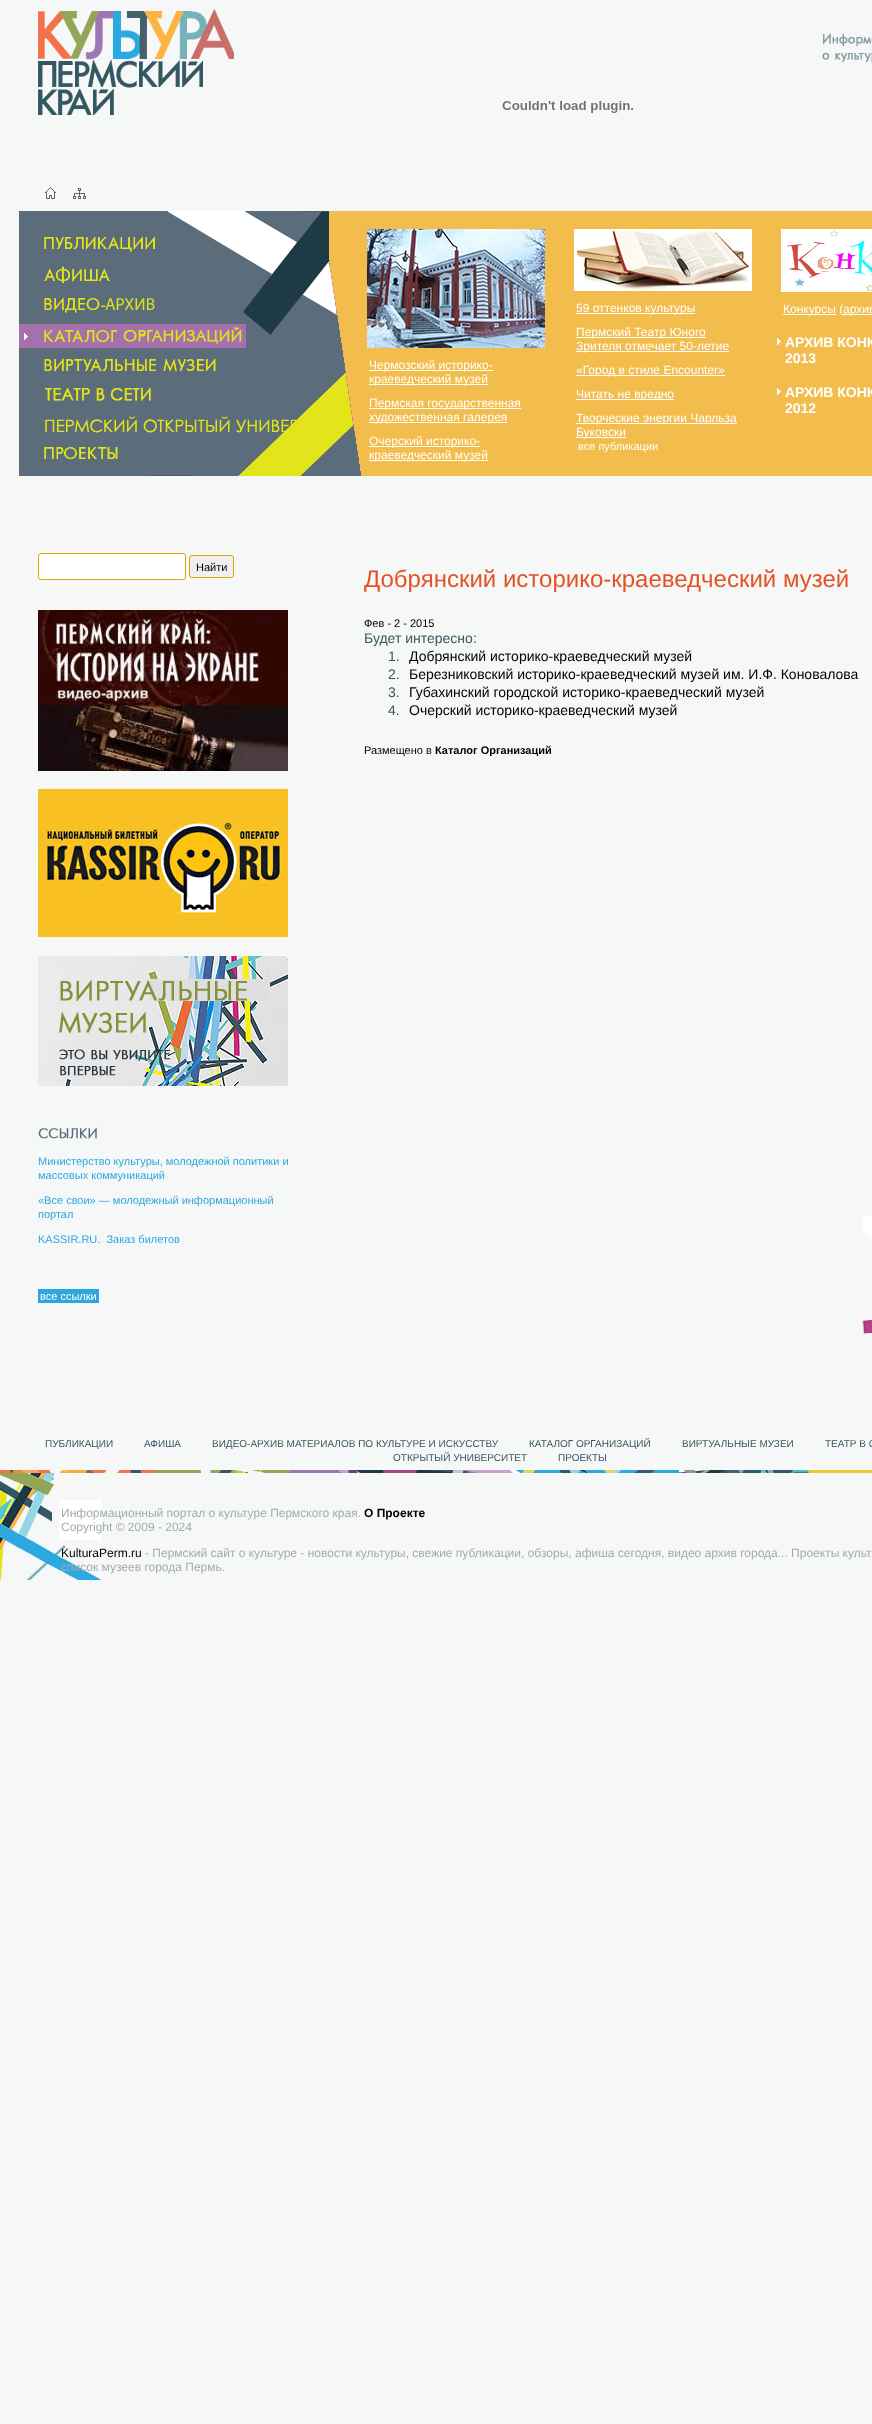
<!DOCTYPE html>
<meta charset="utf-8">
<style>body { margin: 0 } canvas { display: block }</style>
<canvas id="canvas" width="872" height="2424"></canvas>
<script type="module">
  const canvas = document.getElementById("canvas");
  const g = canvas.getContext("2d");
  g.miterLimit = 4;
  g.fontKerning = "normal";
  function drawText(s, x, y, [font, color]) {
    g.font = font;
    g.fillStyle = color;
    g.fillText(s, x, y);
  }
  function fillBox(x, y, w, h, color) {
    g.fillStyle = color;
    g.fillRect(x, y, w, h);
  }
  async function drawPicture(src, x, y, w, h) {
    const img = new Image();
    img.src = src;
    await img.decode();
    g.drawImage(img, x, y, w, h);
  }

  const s1 = ["12px Liberation Sans", "#FFFFFF"];
  const s2 = ["11px Liberation Sans", "#FFFFFF"];
  const s3 = ["bold 14px Liberation Sans", "#FFFFFF"];
  const s4 = ["11px Liberation Sans", "#000000"];
  const s5 = ["11px Liberation Sans", "#2CA7E0"];
  const s6 = ["24px Liberation Sans", "#E45327"];
  const s7 = ["14px Liberation Sans", "#3C555F"];
  const s8 = ["14px Liberation Sans", "#000000"];
  const s9 = ["bold 11px Liberation Sans", "#000000"];
  const s10 = ["10px Liberation Sans", "#3C555F"];
  const s11 = ["12px Liberation Sans", "#A2ABB2"];
  const s12 = ["bold 12px Liberation Sans", "#000000"];
  const s13 = ["12px Liberation Sans", "#000000"];

  fillBox(0, 0, 872, 2424, "#F6F7F7");
  await drawPicture("pic1.png", 38, 9, 196, 106);
  await drawPicture("pic2.png", 45, 187, 11, 12);
  await drawPicture("pic3.png", 73, 188, 13, 11);
  await drawPicture("pic4.png", 822, 33, 50, 29);
  await drawPicture("pic5.png", 502, 101, 131, 12);
  fillBox(329, 211, 543, 265, "#F2BD4D");
  await drawPicture("pic6.png", 19, 211, 342, 265);
  await drawPicture("pic7.png", 44, 236, 111, 16);
  await drawPicture("pic8.png", 44, 266, 66, 17);
  await drawPicture("pic9.png", 44, 297, 111, 16);
  fillBox(19, 324, 227, 24, "#A670AD");
  await drawPicture("pic10.png", 24, 333, 4, 7);
  await drawPicture("pic11.png", 44, 327, 198, 17);
  await drawPicture("pic12.png", 44, 358, 172, 14);
  await drawPicture("pic13.png", 45, 388, 106, 13);
  await drawPicture("pic14.png", 45, 416, 302, 17);
  await drawPicture("pic15.png", 44, 447, 74, 12);
  await drawPicture("pic16.png", 367, 229, 178, 119);
  fillBox(369, 370, 124, 1, "#FFFFFF");
  drawText("Чермозский историко-", 369, 369, s1);
  fillBox(369, 384, 119, 1, "#FFFFFF");
  drawText("краеведческий музей", 369, 383, s1);
  fillBox(369, 408, 152, 1, "#FFFFFF");
  drawText("Пермская государственная", 369, 407, s1);
  fillBox(369, 422, 138, 1, "#FFFFFF");
  drawText("художественная галерея", 369, 421, s1);
  fillBox(369, 446, 111, 1, "#FFFFFF");
  drawText("Очерский историко-", 369, 445, s1);
  fillBox(369, 460, 119, 1, "#FFFFFF");
  drawText("краеведческий музей", 369, 459, s1);
  await drawPicture("pic17.png", 574, 229, 178, 62);
  fillBox(576, 313, 119, 1, "#FFFFFF");
  drawText("59 оттенков культуры", 576, 312, s1);
  fillBox(576, 337, 130, 1, "#FFFFFF");
  drawText("Пермский Театр Юного", 576, 336, s1);
  fillBox(576, 351, 153, 1, "#FFFFFF");
  drawText("Зрителя отмечает 50-летие", 576, 350, s1);
  fillBox(576, 375, 149, 1, "#FFFFFF");
  drawText("«Город в стиле Encounter»", 576, 374, s1);
  fillBox(576, 399, 98, 1, "#FFFFFF");
  drawText("Читать не вредно", 576, 398, s1);
  fillBox(576, 423, 161, 1, "#FFFFFF");
  drawText("Творческие энергии Чарльза", 576, 422, s1);
  fillBox(576, 437, 50, 1, "#FFFFFF");
  drawText("Буковски", 576, 436, s1);
  drawText("все публикации", 578, 450, s2);
  await drawPicture("pic18.png", 781, 229, 91, 63);
  fillBox(783, 314, 53, 1, "#FFFFFF");
  drawText("Конкурсы (", 783, 313, s1);
  fillBox(843, 314, 29, 1, "#FFFFFF");
  drawText("архив", 843, 313, s1);
  await drawPicture("pic19.png", 777, 338, 4, 7);
  drawText("АРХИВ КОНК", 785, 347, s3);
  drawText("2013", 785, 363, s3);
  await drawPicture("pic19.png", 777, 388, 4, 7);
  drawText("АРХИВ КОНК", 785, 397, s3);
  drawText("2012", 785, 413, s3);
  await drawPicture("pic20.png", 862, 1215, 10, 119);
  g.beginPath();
  g.roundRect(38.5, 553.5, 147, 26, 2.5);
  g.fill();
  g.strokeStyle = "#DBA901";
  g.stroke();
  g.fillStyle = "#EFEFEF";
  g.beginPath();
  g.roundRect(189.5, 555.5, 44, 22, 2.5);
  g.fill();
  g.stroke();
  drawText("Найти", 196, 571, s4);
  await drawPicture("pic21.png", 38, 610, 250, 161);
  await drawPicture("pic22.png", 38, 789, 250, 148);
  await drawPicture("pic23.png", 38, 955, 250, 132);
  await drawPicture("pic24.png", 38, 1127, 59, 12);
  drawText("Министерство культуры, молодежной политики и", 38, 1165, s5);
  drawText("массовых коммуникаций", 38, 1179, s5);
  drawText("«Все свои» — молодежный информационный", 38, 1204, s5);
  drawText("портал", 38, 1218, s5);
  drawText("KASSIR.RU.  Заказ билетов", 38, 1243, s5);
  fillBox(38, 1289, 61, 14, "#2CA7E0");
  drawText("все ссылки", 40, 1300, s2);
  drawText("Добрянский историко-краеведческий музей", 364, 587, s6);
  drawText("Фев - 2 - 2015", 364, 627, s4);
  drawText("Будет интересно:", 364, 643, s7);
  drawText("1.", 388, 661, s7);
  drawText("Добрянский историко-краеведческий музей", 409, 661, s8);
  drawText("2.", 388, 679, s7);
  drawText("Березниковский историко-краеведческий музей им. И.Ф. Коновалова", 409, 679, s8);
  drawText("3.", 388, 697, s7);
  drawText("Губахинский городской историко-краеведческий музей", 409, 697, s8);
  drawText("4.", 388, 715, s7);
  drawText("Очерский историко-краеведческий музей", 409, 715, s8);
  drawText("Размещено в", 364, 754, s4);
  g.save();
  g.beginPath();
  g.rect(364, 566, 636, 190);
  g.clip();
  drawText("Каталог Организаций", 435, 754, s9);
  g.restore();
  await drawPicture("pic25.png", 0, 1470, 872, 110);
  drawText("ПУБЛИКАЦИИ", 45, 1447, s10);
  drawText("АФИША", 144, 1447, s10);
  drawText("ВИДЕО-АРХИВ МАТЕРИАЛОВ ПО КУЛЬТУРЕ И ИСКУССТВУ", 212, 1447, s10);
  drawText("КАТАЛОГ ОРГАНИЗАЦИЙ", 529, 1447, s10);
  drawText("ВИРТУАЛЬНЫЕ МУЗЕИ", 682, 1447, s10);
  drawText("ТЕАТР В С", 825, 1447, s10);
  drawText("ОТКРЫТЫЙ УНИВЕРСИТЕТ", 393, 1461, s10);
  drawText("ПРОЕКТЫ", 558, 1461, s10);
  drawText("Информационный портал о культуре Пермского края.", 61, 1517, s11);
  drawText("О Проекте", 364, 1517, s12);
  drawText("Copyright © 2009 - 2024", 61, 1531, s11);
  drawText("KulturaPerm.ru", 61, 1557, s13);
  drawText("- Пермский сайт о культуре - новости культуры, свежие публикации, обзоры, афиша сегодня, видео архив города... Проекты культ", 145, 1557, s11);
  drawText("список музеев города Пермь.", 61, 1571, s11);
</script>
